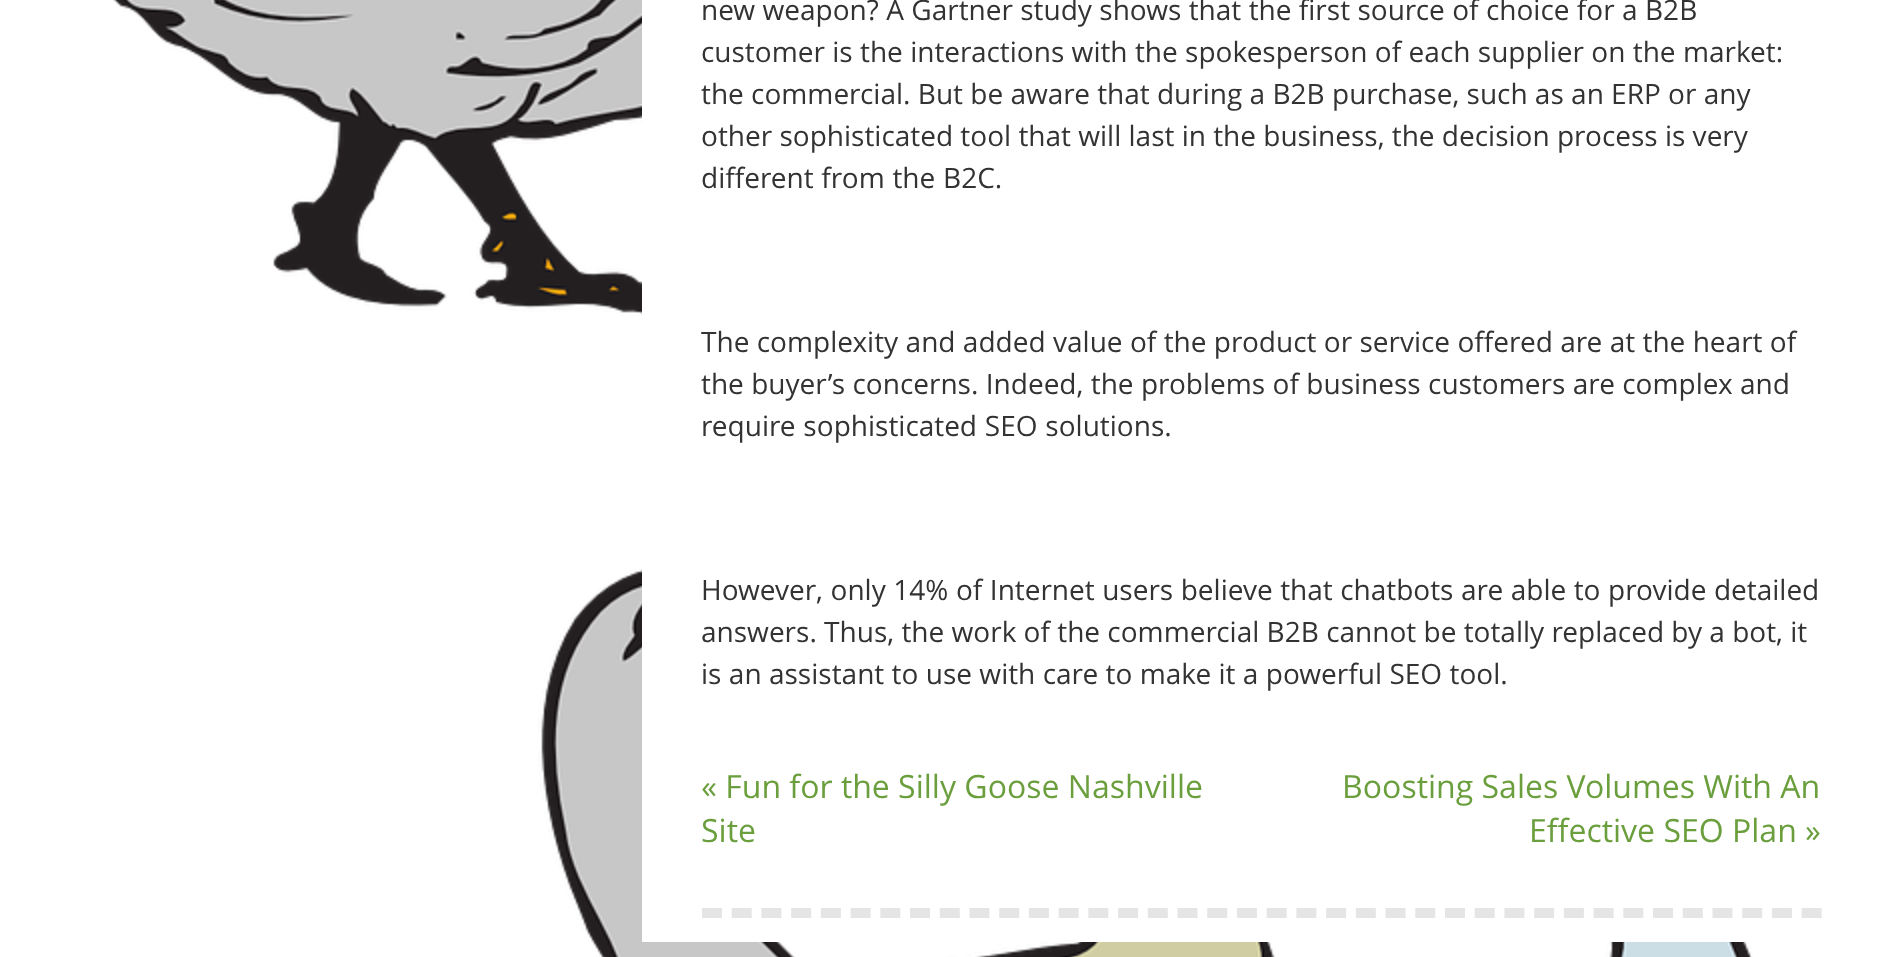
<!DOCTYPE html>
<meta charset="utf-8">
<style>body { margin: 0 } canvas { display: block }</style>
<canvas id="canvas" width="1882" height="957"></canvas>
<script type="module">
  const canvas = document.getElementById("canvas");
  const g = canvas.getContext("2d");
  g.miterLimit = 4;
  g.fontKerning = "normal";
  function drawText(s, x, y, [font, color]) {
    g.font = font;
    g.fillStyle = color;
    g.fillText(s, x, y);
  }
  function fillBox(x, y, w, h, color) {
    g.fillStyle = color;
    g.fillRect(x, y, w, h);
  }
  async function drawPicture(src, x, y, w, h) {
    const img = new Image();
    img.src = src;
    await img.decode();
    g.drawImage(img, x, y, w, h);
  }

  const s1 = ["28px Open Sans", "#333333"];
  const s2 = ["32px Open Sans", "#6B9F3D"];

  fillBox(0, 0, 1882, 957, "#FFFFFF");
  await drawPicture("pic1.png", 113, 0, 1640, 957);
  fillBox(642, 0, 1111, 942, "#FFFFFF");
  g.beginPath();
  g.moveTo(702, 913);
  g.lineTo(1822, 913);
  g.strokeStyle = "#E5E5E5";
  g.lineWidth = 10;
  g.setLineDash([20, 9.72]);
  g.stroke();
  g.wordSpacing = "0.1px";
  drawText("new weapon? A Gartner study shows that the first source of choice for a B2B", 701, 20, s1);
  drawText("customer is the interactions with the spokesperson of each supplier on the market:", 701, 62, s1);
  g.wordSpacing = "0px";
  drawText("the commercial. But be aware that during a B2B purchase, such as an ERP or any", 701, 104, s1);
  drawText("other sophisticated tool that will last in the business, the decision process is very", 701, 146, s1);
  g.wordSpacing = "0.5px";
  drawText("different from the B2C.", 701, 188, s1);
  g.wordSpacing = "0.1px";
  drawText("The complexity and added value of the product or service offered are at the heart of", 701, 352, s1);
  drawText("the buyer’s concerns. Indeed, the problems of business customers are complex and", 701, 394, s1);
  g.wordSpacing = "0.5px";
  drawText("require sophisticated SEO solutions.", 701, 436, s1);
  g.wordSpacing = "0.25px";
  drawText("However, only 14% of Internet users believe that chatbots are able to provide detailed", 701, 600, s1);
  g.wordSpacing = "0px";
  drawText("answers. Thus, the work of the commercial B2B cannot be totally replaced by a bot, it", 701, 642, s1);
  g.wordSpacing = "0.1px";
  drawText("is an assistant to use with care to make it a powerful SEO tool.", 701, 684, s1);
  g.wordSpacing = "0px";
  drawText("« Fun for the Silly Goose Nashville", 701, 798, s2);
  drawText("Site", 701, 842, s2);
  drawText("Boosting Sales Volumes With An", 1342, 798, s2);
  drawText("Effective SEO Plan »", 1529, 842, s2);
</script>
